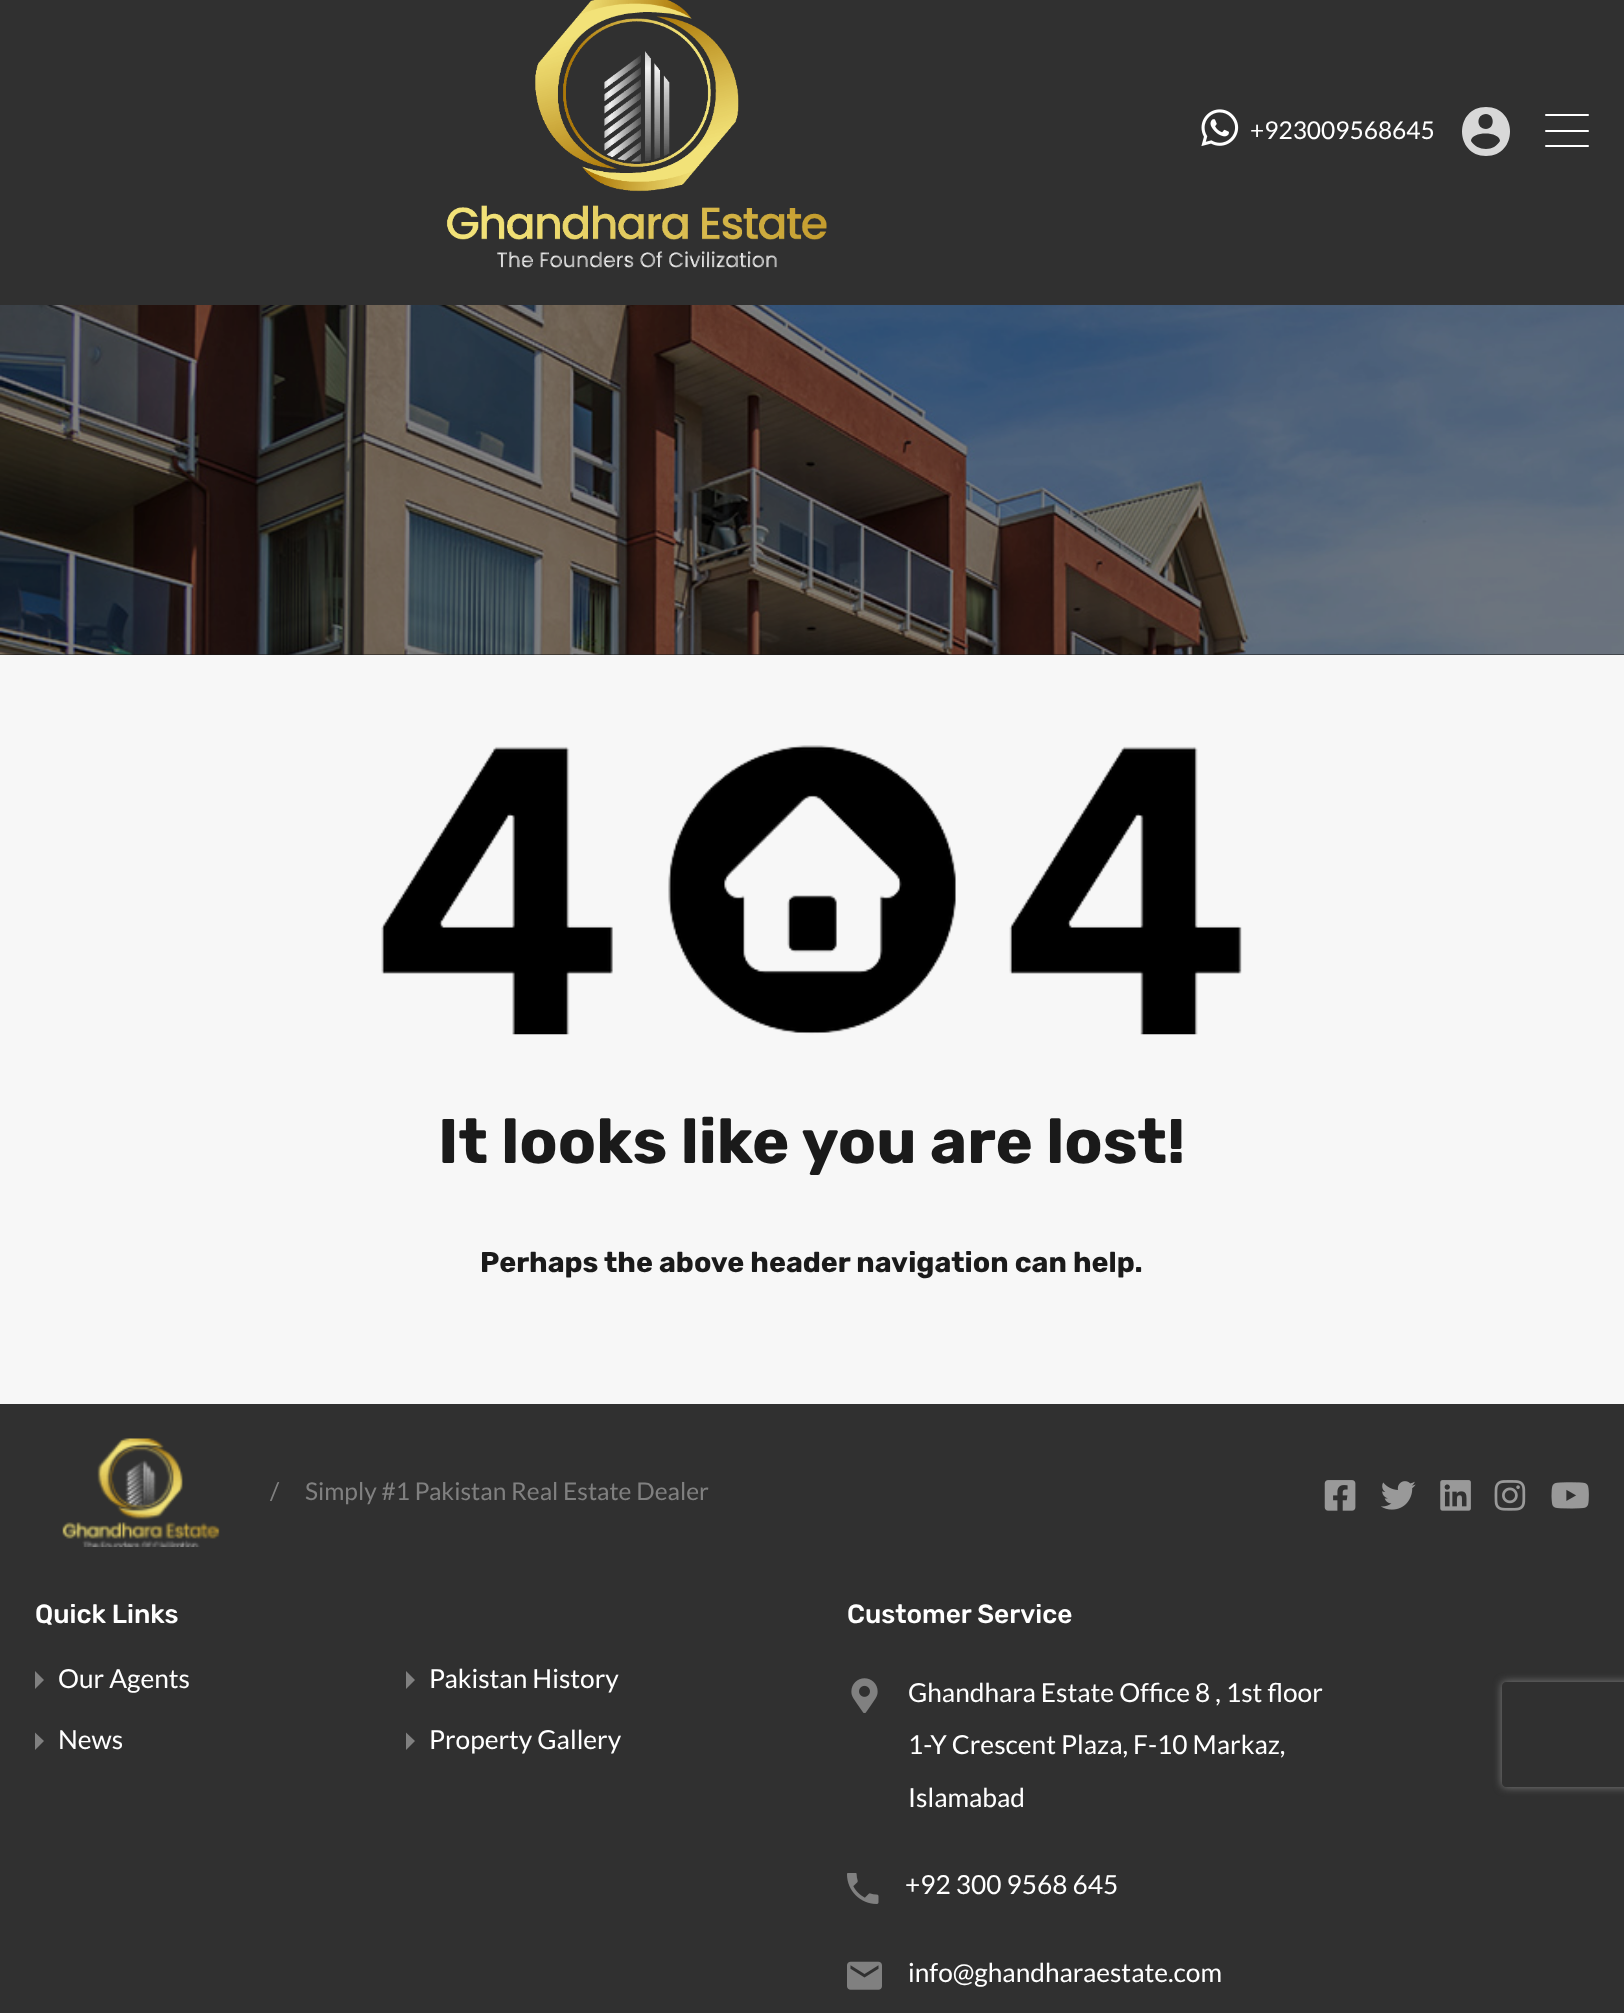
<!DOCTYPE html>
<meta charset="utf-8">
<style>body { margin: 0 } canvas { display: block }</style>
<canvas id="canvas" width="1624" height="2013"></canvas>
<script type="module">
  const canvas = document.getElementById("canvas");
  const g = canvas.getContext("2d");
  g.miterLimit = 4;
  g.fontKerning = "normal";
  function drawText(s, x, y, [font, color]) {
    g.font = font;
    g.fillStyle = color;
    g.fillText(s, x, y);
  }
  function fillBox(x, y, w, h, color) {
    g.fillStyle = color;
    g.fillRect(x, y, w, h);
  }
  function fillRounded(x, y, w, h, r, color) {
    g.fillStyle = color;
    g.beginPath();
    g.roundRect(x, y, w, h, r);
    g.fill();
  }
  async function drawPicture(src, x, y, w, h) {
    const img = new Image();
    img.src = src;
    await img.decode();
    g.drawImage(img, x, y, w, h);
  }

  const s1 = ["24.5px Lato", "#FFFFFF"];
  const s2 = ["bold 63px Rubik", "#1A1A1A"];
  const s3 = ["bold 28.6px Rubik", "#1A1A1A"];
  const s4 = ["24.5px Lato", "#808080"];
  const s5 = ["500 26.25px Rubik", "#FFFFFF"];
  const s6 = ["26.25px Lato", "#FFFFFF"];

  fillBox(0, 0, 1624, 2013, "#F7F7F7");
  fillBox(0, 0, 1624, 305, "#303030");
  await drawPicture("pic1.png", 446, 0, 381, 268);
  await drawPicture("pic2.png", 1201, 109, 38, 38);
  drawText("+923009568645", 1250, 139, s1);
  g.fillStyle = "#D8D8D8";
  g.beginPath();
  g.moveTo(1486, 107);
  g.bezierCurveTo(1454, 107, 1454, 156, 1486, 156);
  g.bezierCurveTo(1518, 156, 1518, 107, 1486, 107);
  g.closePath();
  g.moveTo(1486, 114);
  g.bezierCurveTo(1495, 114, 1495, 129, 1486, 129);
  g.bezierCurveTo(1476, 129, 1476, 114, 1486, 114);
  g.closePath();
  g.moveTo(1486, 149);
  g.bezierCurveTo(1480, 149, 1474, 146, 1471, 141);
  g.bezierCurveTo(1471, 131, 1500, 131, 1500, 141);
  g.bezierCurveTo(1497, 146, 1492, 149, 1486, 149);
  g.closePath();
  g.fill();
  fillRounded(1545, 130, 44, 2, 1, "#FFFFFF");
  fillRounded(1545, 114, 44, 2, 1, "#FFFFFF");
  fillRounded(1545, 145, 44, 2, 1, "#FFFFFF");
  fillBox(0, 654, 1624, 1, "#181818");
  await drawPicture("pic3.png", 0, 305, 1624, 350);
  await drawPicture("pic4.png", 381, 745, 861, 290);
  drawText("It looks like you are lost!", 438, 1163, s2);
  drawText("Perhaps the above header navigation can help.", 480, 1272, s3);
  fillBox(0, 1404, 1624, 609, "#303030");
  await drawPicture("pic5.png", 62, 1438, 158, 109);
  drawText("/", 270, 1500, s4);
  drawText("Simply #1 Pakistan Real Estate Dealer", 305, 1500, s4);
  await drawPicture("pic6.png", 1324, 1480, 32, 31);
  await drawPicture("pic7.png", 1381, 1481, 35, 29);
  await drawPicture("pic8.png", 1440, 1480, 31, 31);
  await drawPicture("pic9.png", 1494, 1480, 32, 31);
  await drawPicture("pic10.png", 1551, 1482, 38, 27);
  drawText("Quick Links", 35, 1623, s5);
  g.fillStyle = "#808080";
  g.beginPath();
  g.moveTo(35, 1689);
  g.lineTo(35, 1671);
  g.lineTo(44, 1680);
  g.closePath();
  g.fill();
  drawText("Our Agents", 58, 1688, s6);
  g.fillStyle = "#808080";
  g.beginPath();
  g.moveTo(406, 1689);
  g.lineTo(406, 1671);
  g.lineTo(415, 1680);
  g.closePath();
  g.fill();
  drawText("Pakistan History", 429, 1688, s6);
  g.fillStyle = "#808080";
  g.beginPath();
  g.moveTo(35, 1750);
  g.lineTo(35, 1732.5);
  g.lineTo(44, 1741);
  g.closePath();
  g.fill();
  drawText("News", 58, 1749, s6);
  g.fillStyle = "#808080";
  g.beginPath();
  g.moveTo(406, 1750);
  g.lineTo(406, 1732.5);
  g.lineTo(415, 1741);
  g.closePath();
  g.fill();
  drawText("Property Gallery", 429, 1749, s6);
  drawText("Customer Service", 847, 1623, s5);
  await drawPicture("pic11.png", 851, 1678, 27, 35);
  drawText("Ghandhara Estate Office 8 , 1st floor", 908, 1702, s6);
  drawText("1-Y Crescent Plaza, F-10 Markaz,", 908, 1754, s6);
  drawText("Islamabad", 908, 1807, s6);
  await drawPicture("pic12.png", 847, 1873, 32, 31);
  drawText("+92 300 9568 645", 905, 1894, s6);
  await drawPicture("pic13.png", 847, 1961, 35, 29);
  drawText("info@ghandharaestate.com", 908, 1982, s6);
  g.save();
  g.beginPath();
  g.moveTo(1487, 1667);
  g.lineTo(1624, 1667);
  g.lineTo(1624, 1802);
  g.lineTo(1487, 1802);
  g.closePath();
  g.moveTo(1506, 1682);
  g.lineTo(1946, 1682);
  g.bezierCurveTo(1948, 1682, 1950, 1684, 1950, 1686);
  g.lineTo(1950, 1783);
  g.bezierCurveTo(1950, 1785, 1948, 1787, 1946, 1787);
  g.lineTo(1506, 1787);
  g.bezierCurveTo(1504, 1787, 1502, 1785, 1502, 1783);
  g.lineTo(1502, 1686);
  g.bezierCurveTo(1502, 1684, 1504, 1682, 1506, 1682);
  g.closePath();
  g.clip("evenodd");
  g.fillStyle = "#808080";
  g.filter = "blur(4.5px)";
  g.beginPath();
  g.roundRect(1502, 1682, 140, 105, 4);
  g.fill();
  g.filter = "none";
  g.restore();
</script>
